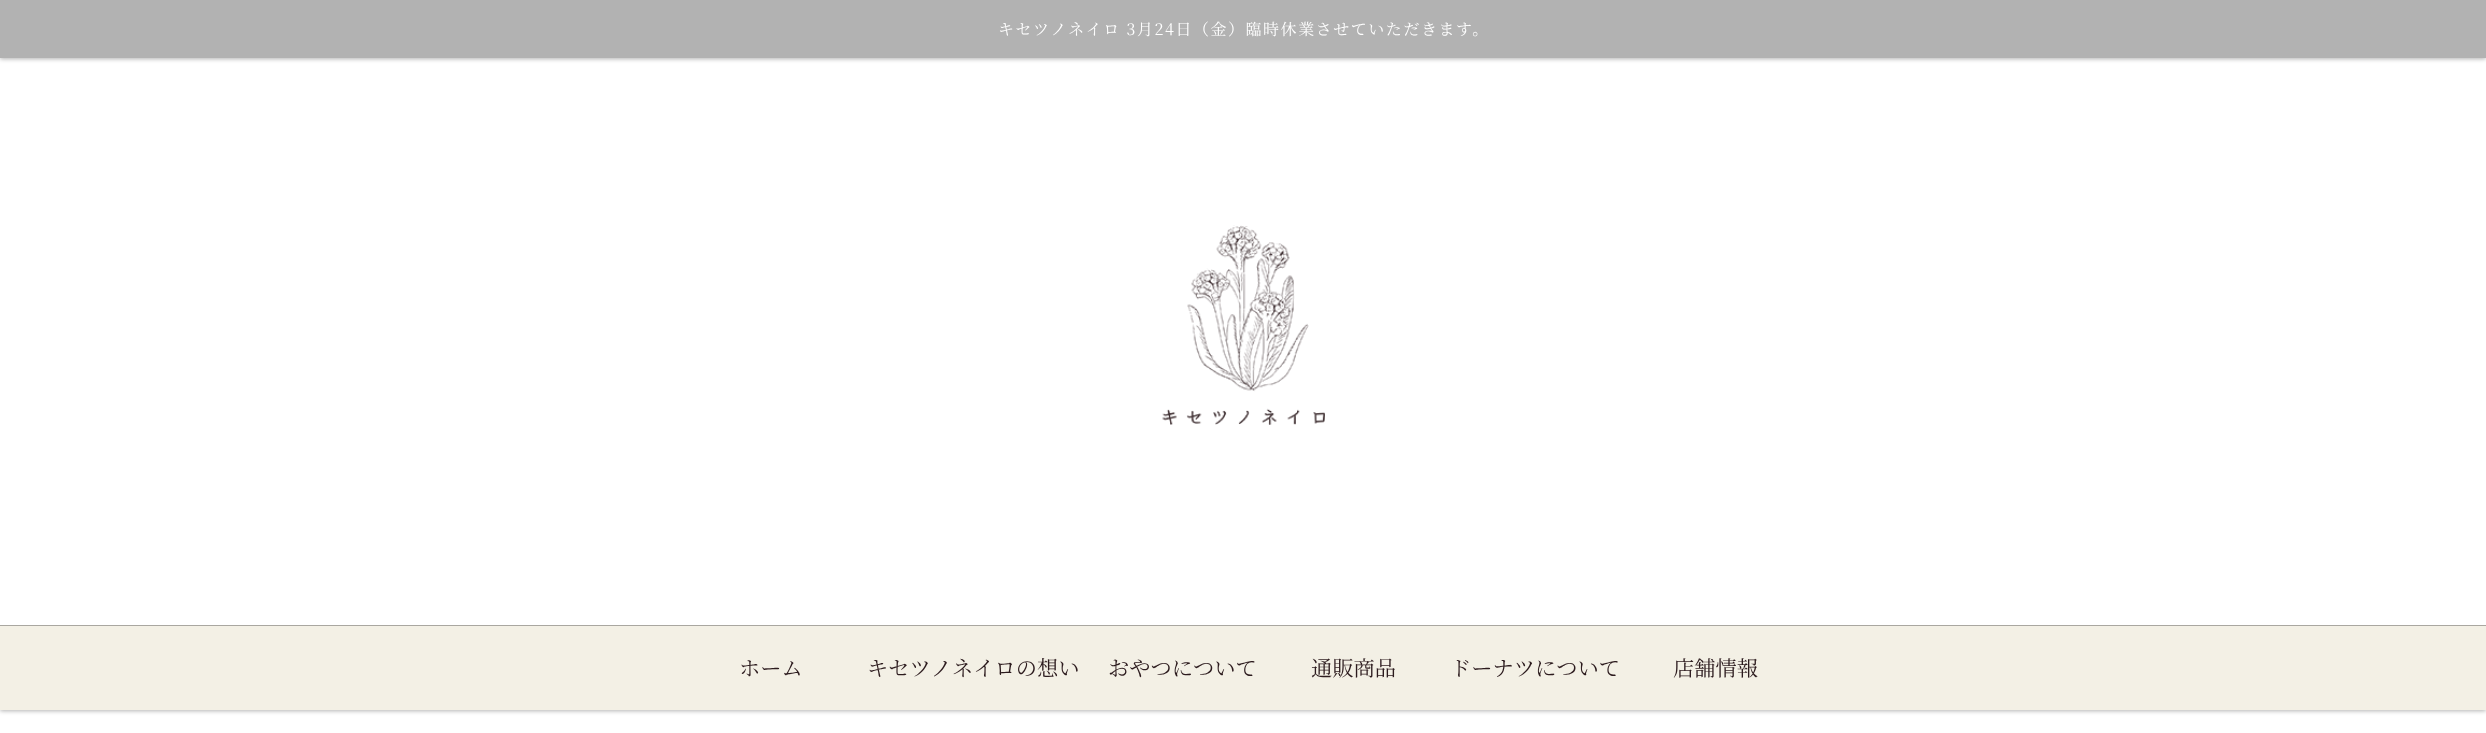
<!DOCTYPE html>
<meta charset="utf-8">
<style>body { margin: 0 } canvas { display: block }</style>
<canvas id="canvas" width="2486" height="733"></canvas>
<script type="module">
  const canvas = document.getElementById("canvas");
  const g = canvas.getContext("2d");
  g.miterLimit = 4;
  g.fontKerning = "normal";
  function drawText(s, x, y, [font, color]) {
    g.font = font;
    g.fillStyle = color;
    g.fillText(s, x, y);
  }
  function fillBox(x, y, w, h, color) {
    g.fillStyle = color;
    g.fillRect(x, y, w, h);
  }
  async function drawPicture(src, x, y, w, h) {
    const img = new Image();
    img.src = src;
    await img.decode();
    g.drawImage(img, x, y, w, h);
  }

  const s1 = ["15.95px Noto Serif JP", "#FFFFFF"];
  const s2 = ["21.25px Noto Serif JP", "#2C1B1E"];

  fillBox(0, 0, 2486, 733, "#FFFFFF");
  g.fillStyle = "rgba(0, 0, 0, 0.3)";
  g.filter = "blur(2px)";
  g.beginPath();
  g.rect(0, 626, 2486, 85);
  g.fill();
  g.filter = "none";
  fillBox(0, 625, 2486, 85, "#F3F0E5");
  g.fillStyle = "rgba(0, 0, 0, 0.3)";
  g.filter = "blur(0.5px)";
  g.beginPath();
  g.rect(0, 1, 2486, 625);
  g.fill();
  g.filter = "none";
  fillBox(0, 0, 2486, 625, "#FFFFFF");
  g.save();
  g.beginPath();
  g.moveTo(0, 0);
  g.lineTo(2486, 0);
  g.lineTo(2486, 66);
  g.lineTo(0, 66);
  g.closePath();
  g.moveTo(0, 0);
  g.lineTo(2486, 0);
  g.lineTo(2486, 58);
  g.lineTo(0, 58);
  g.closePath();
  g.clip("evenodd");
  g.fillStyle = "rgba(0, 0, 0, 0.3)";
  g.filter = "blur(2px)";
  g.beginPath();
  g.rect(0, 1, 2486, 58);
  g.fill();
  g.filter = "none";
  g.restore();
  fillBox(0, 0, 2486, 58, "rgba(0, 0, 0, 0.3)");
  g.letterSpacing = "1.6px";
  drawText("キセツノネイロ 3月24日（金）臨時休業させていただきます。", 998, 35, s1);
  await drawPicture("pic1.png", 1162, 225, 163, 200);
  g.letterSpacing = "0px";
  drawText("ホーム", 739, 676, s2);
  drawText("キセツノネイロの想い", 867, 676, s2);
  drawText("おやつについて", 1108, 676, s2);
  drawText("通販商品", 1311, 676, s2);
  drawText("ドーナツについて", 1450, 676, s2);
  drawText("店舗情報", 1673, 676, s2);
</script>
